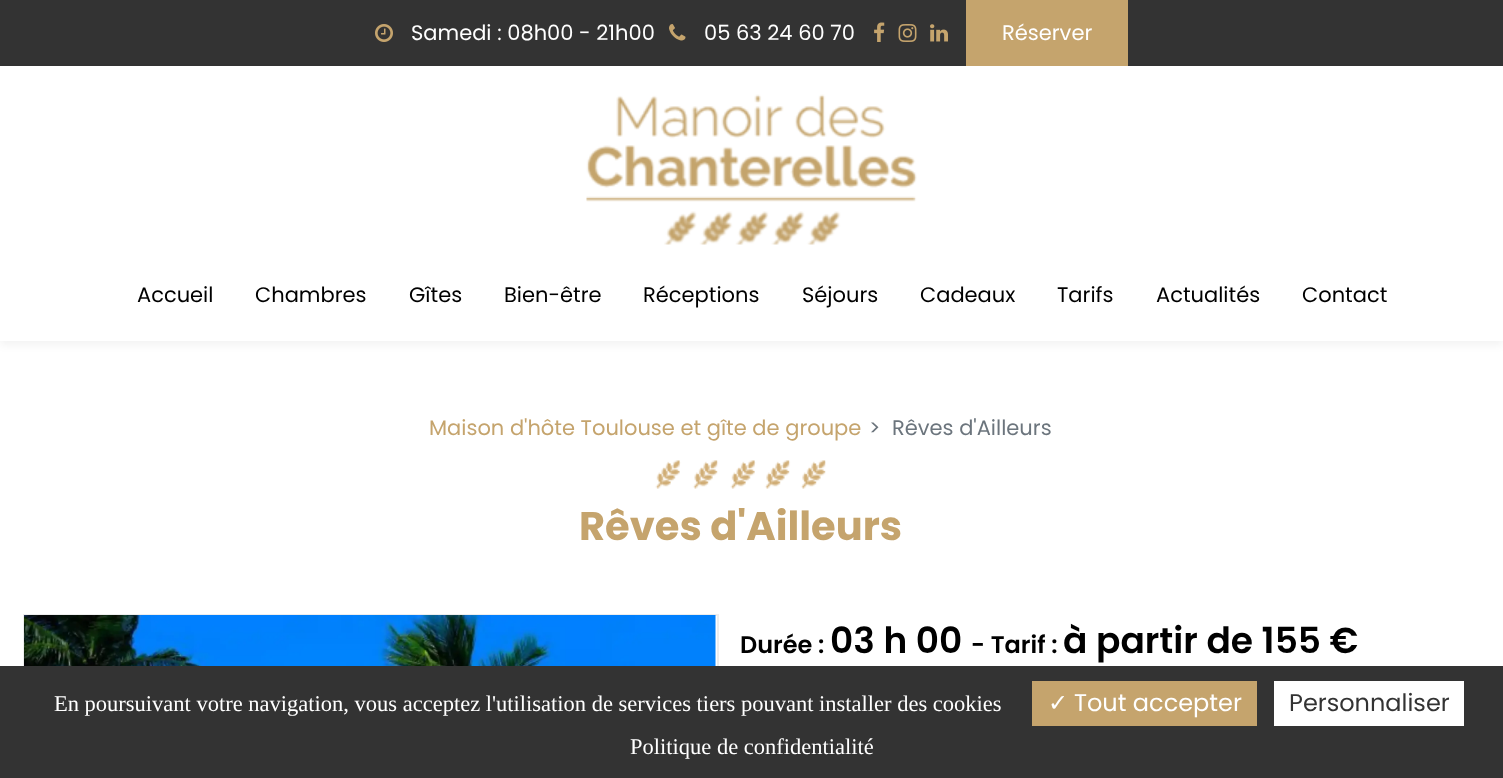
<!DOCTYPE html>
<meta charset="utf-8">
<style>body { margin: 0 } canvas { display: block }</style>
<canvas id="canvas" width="1503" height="778"></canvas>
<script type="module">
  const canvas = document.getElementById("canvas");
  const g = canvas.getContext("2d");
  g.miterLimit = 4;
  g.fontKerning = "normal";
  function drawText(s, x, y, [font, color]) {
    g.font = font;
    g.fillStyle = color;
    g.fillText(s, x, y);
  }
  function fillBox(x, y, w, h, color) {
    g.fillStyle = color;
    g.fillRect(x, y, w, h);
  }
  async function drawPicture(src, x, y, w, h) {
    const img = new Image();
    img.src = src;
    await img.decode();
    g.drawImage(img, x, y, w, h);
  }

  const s1 = ["21px Poppins", "#FFFFFF"];
  const s2 = ["21px Poppins", "#000000"];
  const s3 = ["21px Poppins", "#C5A46D"];
  const s4 = ["21px Poppins", "#6C757D"];
  const s5 = ["bold 40px Poppins", "#C5A46D"];
  const s6 = ["600 24px Poppins", "#000000"];
  const s7 = ["600 36px Poppins", "#000000"];
  const s8 = ["22.5px Liberation Serif", "#FFFFFF"];
  const s9 = ["24px DejaVu Sans", "#FFFFFF"];
  const s10 = ["24px Poppins", "#FFFFFF"];
  const s11 = ["24px Poppins", "#333333"];

  fillBox(0, 0, 1503, 778, "#FFFFFF");
  fillBox(0, 0, 1503, 66, "#333333");
  await drawPicture("pic1.png", 375, 24, 18, 18);
  drawText("Samedi : 08h00 - 21h00", 411, 40, s1);
  await drawPicture("pic2.png", 669, 24, 17, 17);
  drawText("05 63 24 60 70", 704, 40, s1);
  await drawPicture("pic3.png", 874, 22, 11, 20);
  await drawPicture("pic4.png", 898, 24, 19, 18);
  await drawPicture("pic5.png", 930, 24, 18, 18);
  g.save();
  g.beginPath();
  g.moveTo(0, 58);
  g.lineTo(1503, 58);
  g.lineTo(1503, 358);
  g.lineTo(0, 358);
  g.closePath();
  g.moveTo(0, 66);
  g.lineTo(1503, 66);
  g.lineTo(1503, 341);
  g.lineTo(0, 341);
  g.closePath();
  g.clip("evenodd");
  g.fillStyle = "rgba(0, 0, 0, 0.05)";
  g.filter = "blur(4px)";
  g.beginPath();
  g.rect(0, 71, 1503, 274);
  g.fill();
  g.filter = "none";
  g.restore();
  fillBox(966, 0, 162, 66, "#C5A46D");
  drawText("Réserver", 1002, 40, s1);
  await drawPicture("pic6.png", 586, 94, 331, 151);
  drawText("Accueil", 137, 302, s2);
  drawText("Chambres", 255, 302, s2);
  drawText("Gîtes", 409, 302, s2);
  drawText("Bien-être", 504, 302, s2);
  drawText("Réceptions", 643, 302, s2);
  drawText("Séjours", 802, 302, s2);
  drawText("Cadeaux", 920, 302, s2);
  drawText("Tarifs", 1057, 302, s2);
  drawText("Actualités", 1156, 302, s2);
  drawText("Contact", 1302, 302, s2);
  drawText("Maison d'hôte Toulouse et gîte de groupe", 429, 435, s3);
  drawText(">", 869, 435, s4);
  drawText("Rêves d'Ailleurs", 892, 435, s4);
  await drawPicture("pic7.png", 655, 460, 171, 29);
  drawText("Rêves d'Ailleurs", 579, 540, s5);
  g.strokeStyle = "#EDEDED";
  g.lineWidth = 2;
  g.strokeRect(24, 615, 694, 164);
  await drawPicture("pic8.png", 24, 615, 692, 51);
  drawText("Durée :", 740, 653, s6);
  drawText("03 h 00", 830, 653, s7);
  drawText("- Tarif :", 971, 653, s6);
  drawText("à partir de 155 €", 1063, 653, s7);
  fillBox(0, 666, 1503, 112, "#333333");
  drawText("En poursuivant votre navigation, vous acceptez l'utilisation de services tiers pouvant installer des cookies", 54, 711, s8);
  fillBox(1032, 681, 225, 45, "#C5A46D");
  drawText("✓", 1048, 711, s9);
  drawText("Tout accepter", 1074, 711, s10);
  fillBox(1274, 681, 190, 45, "#FFFFFF");
  drawText("Personnaliser", 1289, 711, s11);
  drawText("Politique de confidentialité", 630, 754, s8);
</script>
